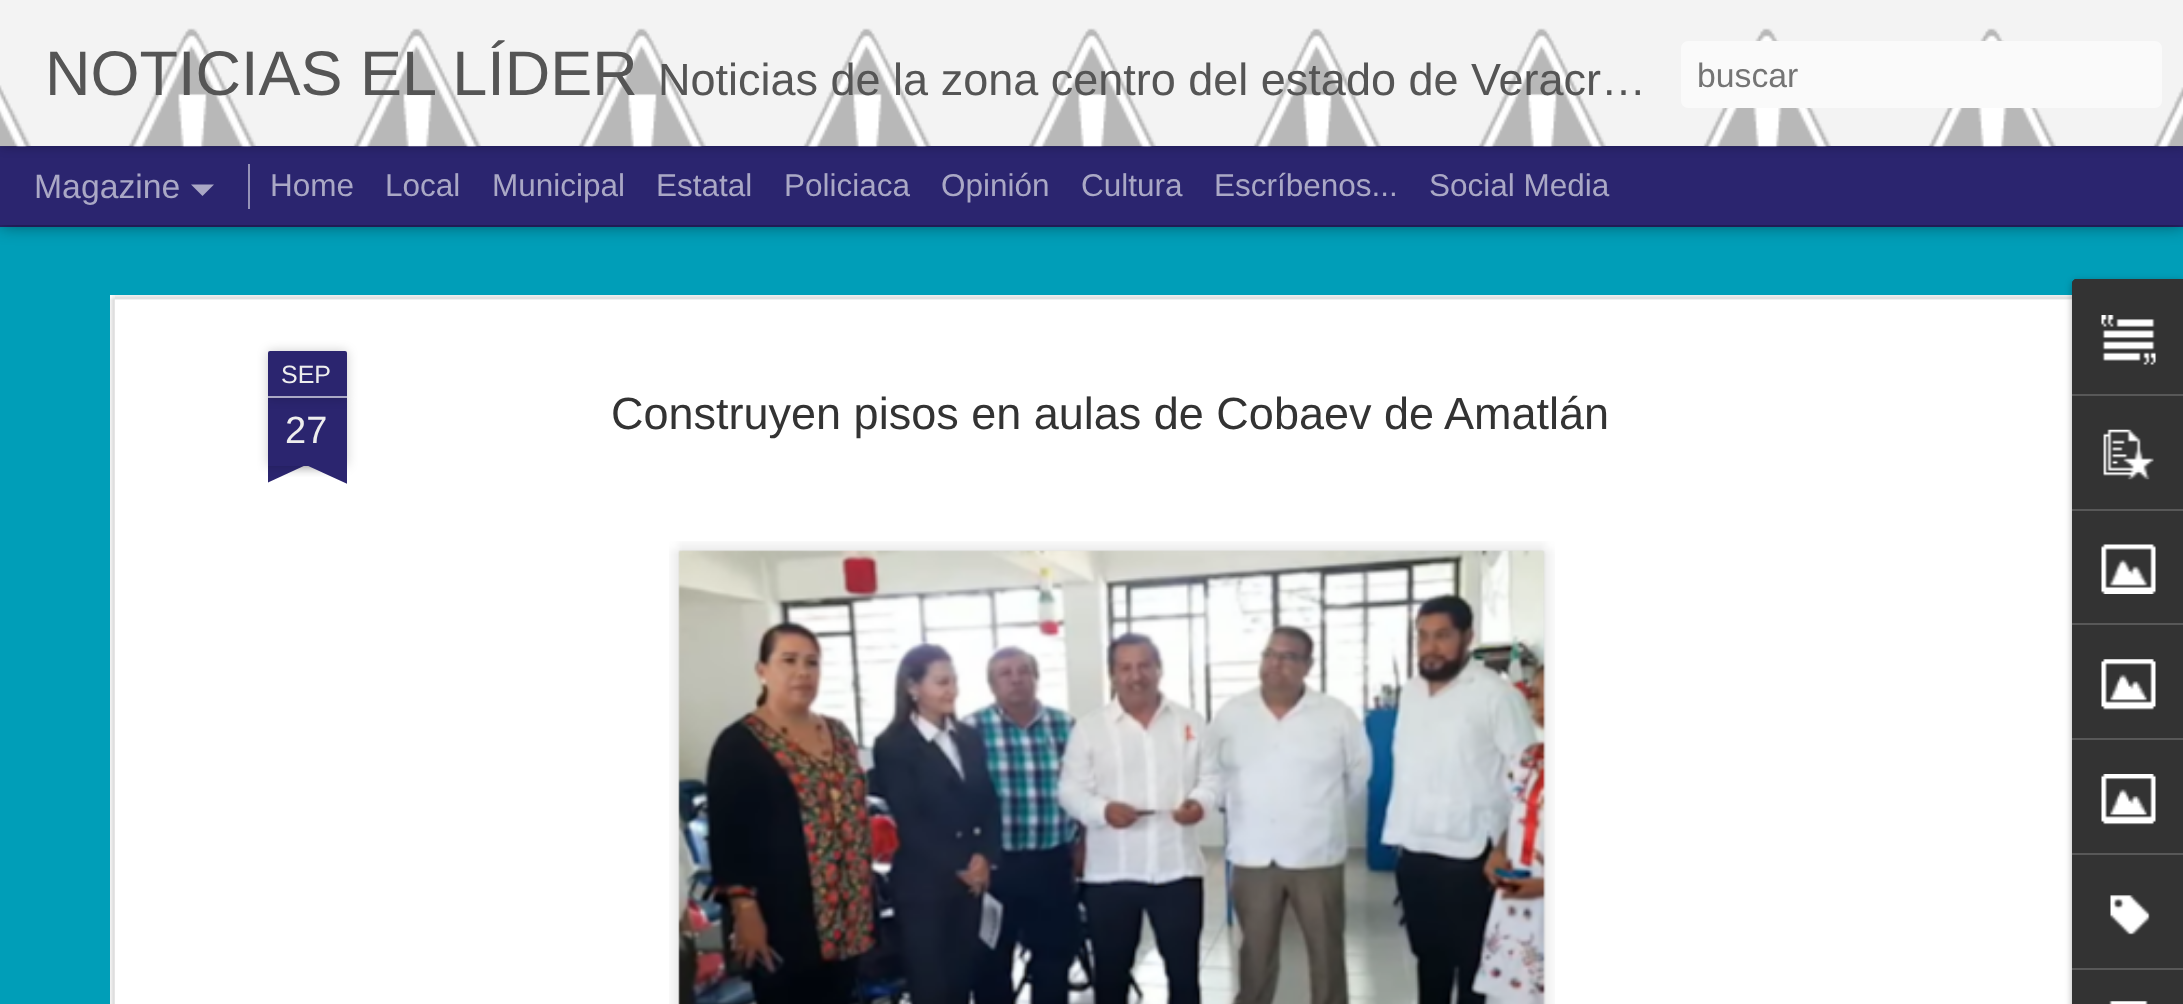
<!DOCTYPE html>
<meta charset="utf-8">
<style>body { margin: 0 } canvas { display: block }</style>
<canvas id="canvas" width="2183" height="1004"></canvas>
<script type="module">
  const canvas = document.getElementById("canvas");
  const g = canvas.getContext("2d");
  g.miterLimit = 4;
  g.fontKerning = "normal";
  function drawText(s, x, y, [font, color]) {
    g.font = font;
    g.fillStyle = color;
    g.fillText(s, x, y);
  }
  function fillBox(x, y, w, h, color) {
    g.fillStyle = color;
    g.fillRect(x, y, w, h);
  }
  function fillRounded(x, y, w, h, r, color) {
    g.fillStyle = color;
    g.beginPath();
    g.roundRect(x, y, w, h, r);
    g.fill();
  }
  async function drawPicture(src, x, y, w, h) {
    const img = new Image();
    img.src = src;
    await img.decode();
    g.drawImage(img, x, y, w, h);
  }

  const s1 = ["63px Liberation Sans", "#555555"];
  const s2 = ["45px Liberation Sans", "#555555"];
  const s3 = ["33.75px Liberation Sans", "#757575"];
  const s4 = ["33.75px Liberation Sans", "#AAA8C5"];
  const s5 = ["31.5px Liberation Sans", "#AAA8C5"];
  const s6 = ["25px Liberation Sans", "#EEEEEE"];
  const s7 = ["38px Liberation Sans", "#EEEEEE"];
  const s8 = ["45px Liberation Sans", "#333333"];

  fillBox(0, 0, 2183, 1004, "#2B256F");
  fillBox(0, 227, 2183, 777, "#009EB8");
  g.fillStyle = "rgba(0, 0, 0, 0.5)";
  g.filter = "blur(9px)";
  g.beginPath();
  g.rect(0, 146, 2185, 79);
  g.fill();
  g.filter = "none";
  fillBox(0, 146, 2183, 79, "#2B256F");
  g.fillStyle = "rgba(0, 0, 0, 0.3)";
  g.filter = "blur(5.5px)";
  g.beginPath();
  g.rect(0, 0, 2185, 146);
  g.fill();
  g.filter = "none";
  fillBox(0, 0, 2183, 146, "#F3F3F3");
  await drawPicture("pic1.png", 0, 28, 2183, 119);
  drawText("NOTICIAS EL LÍDER", 45, 95, s1);
  drawText("Noticias de la zona centro del estado de Veracr…", 658, 95, s2);
  fillRounded(1681, 41, 481, 67, 7, "#FAFAFA");
  drawText("buscar", 1697, 87, s3);
  drawText("Magazine", 34, 198, s4);
  g.beginPath();
  g.moveTo(191, 184.5);
  g.lineTo(214, 184.5);
  g.lineTo(202.5, 196);
  g.closePath();
  g.fill();
  fillBox(248, 164, 2, 45, "#9592B7");
  drawText("Home", 270, 196, s5);
  drawText("Local", 385, 196, s5);
  drawText("Municipal", 492, 196, s5);
  drawText("Estatal", 656, 196, s5);
  drawText("Policiaca", 784, 196, s5);
  drawText("Opinión", 941, 196, s5);
  drawText("Cultura", 1081, 196, s5);
  drawText("Escríbenos...", 1214, 196, s5);
  drawText("Social Media", 1429, 196, s5);
  fillBox(110, 295, 1962, 709, "#FFFFFF");
  await drawPicture("pic2.png", 110, 295, 1962, 709);
  g.fillStyle = "rgba(0, 0, 0, 0.2)";
  g.filter = "blur(5.5px)";
  g.beginPath();
  g.rect(268, 398, 79, 68);
  g.fill();
  g.filter = "none";
  fillBox(268, 398, 79, 68, "#2B256F");
  g.fillStyle = "rgba(0, 0, 0, 0.2)";
  g.filter = "blur(5.5px)";
  g.beginPath();
  g.roundRect(268, 351, 79, 47, 2);
  g.fill();
  g.filter = "none";
  g.fillStyle = "#2B256F";
  g.beginPath();
  g.roundRect(268, 351, 79, 47, [2, 2, 0, 0]);
  g.fill();
  fillBox(268, 396, 79, 2, "#AAA8C5");
  drawText("SEP", 281, 383, s6);
  drawText("27", 285, 443, s7);
  g.save();
  g.beginPath();
  g.rect(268, 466, 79, 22);
  g.clip();
  g.fillStyle = "rgba(0, 0, 0, 0.2)";
  g.filter = "blur(5.5px)";
  g.beginPath();
  g.rect(248, 443, 112, 23);
  g.fill();
  g.filter = "none";
  g.restore();
  g.save();
  g.beginPath();
  g.rect(268, 466, 79, 22);
  g.clip();
  g.fillStyle = "#2B256F";
  g.beginPath();
  g.moveTo(247, 468);
  g.lineTo(349, 421);
  g.lineTo(358, 441);
  g.lineTo(256, 488);
  g.closePath();
  g.fill();
  g.restore();
  g.save();
  g.beginPath();
  g.rect(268, 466, 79, 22);
  g.clip();
  g.fillStyle = "rgba(0, 0, 0, 0.2)";
  g.filter = "blur(5.5px)";
  g.beginPath();
  g.rect(254, 443, 113, 23);
  g.fill();
  g.filter = "none";
  g.restore();
  g.save();
  g.beginPath();
  g.rect(268, 466, 79, 22);
  g.clip();
  g.fillStyle = "#2B256F";
  g.beginPath();
  g.moveTo(263, 421);
  g.lineTo(365, 468);
  g.lineTo(356, 488);
  g.lineTo(254, 441);
  g.closePath();
  g.fill();
  g.restore();
  drawText("Construyen pisos en aulas de Cobaev de Amatlán", 611, 429, s8);
  await drawPicture("pic3.png", 669, 541, 886, 463);
  await drawPicture("pic4.png", 678, 550, 868, 454);
  g.fillStyle = "rgba(0, 0, 0, 0.3)";
  g.filter = "blur(3.5px)";
  g.beginPath();
  g.roundRect(2072, 281, 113, 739, 5);
  g.fill();
  g.filter = "none";
  g.fillStyle = "#333333";
  g.beginPath();
  g.moveTo(2077, 279);
  g.lineTo(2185, 279);
  g.lineTo(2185, 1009);
  g.lineTo(2077, 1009);
  g.bezierCurveTo(2074, 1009, 2072, 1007, 2072, 1004);
  g.lineTo(2072, 284);
  g.bezierCurveTo(2072, 281, 2074, 279, 2077, 279);
  g.closePath();
  g.fill();
  g.beginPath();
  g.moveTo(2077, 279);
  g.lineTo(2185, 279);
  g.lineTo(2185, 394);
  g.lineTo(2072, 394);
  g.lineTo(2072, 284);
  g.bezierCurveTo(2072, 281, 2074, 279, 2077, 279);
  g.closePath();
  g.fill();
  await drawPicture("pic5.png", 2101, 315, 55, 50);
  fillBox(2072, 394, 111, 2, "#585858");
  await drawPicture("pic6.png", 2103, 429, 51, 51);
  fillBox(2072, 509, 111, 2, "#585858");
  await drawPicture("pic7.png", 2101, 544, 55, 50);
  fillBox(2072, 623, 111, 2, "#585858");
  await drawPicture("pic8.png", 2101, 659, 55, 51);
  fillBox(2072, 738, 111, 2, "#585858");
  await drawPicture("pic9.png", 2101, 774, 55, 51);
  fillBox(2072, 853, 111, 2, "#585858");
  await drawPicture("pic10.png", 2110, 895, 40, 40);
  fillBox(2072, 968, 111, 2, "#585858");
  await drawPicture("pic11.png", 2109, 1001, 39, 3);
</script>
